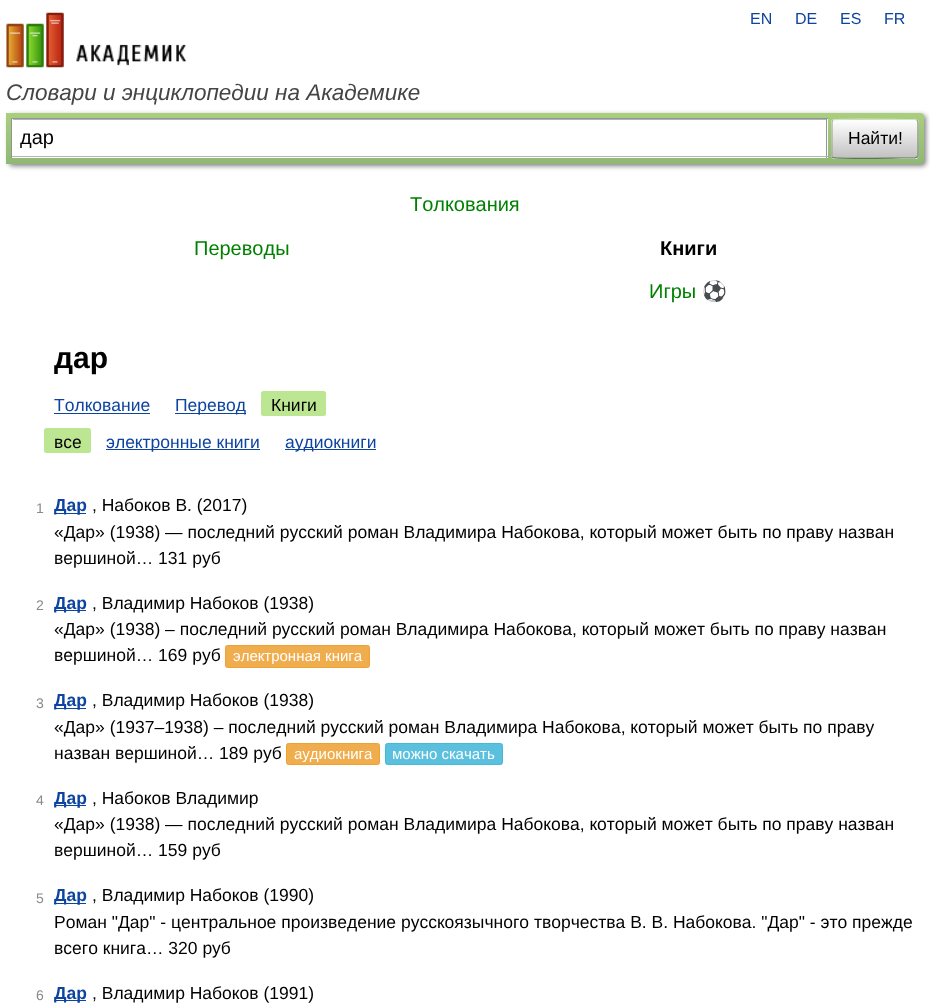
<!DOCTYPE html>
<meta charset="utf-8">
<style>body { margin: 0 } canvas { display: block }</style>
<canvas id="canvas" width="930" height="1007"></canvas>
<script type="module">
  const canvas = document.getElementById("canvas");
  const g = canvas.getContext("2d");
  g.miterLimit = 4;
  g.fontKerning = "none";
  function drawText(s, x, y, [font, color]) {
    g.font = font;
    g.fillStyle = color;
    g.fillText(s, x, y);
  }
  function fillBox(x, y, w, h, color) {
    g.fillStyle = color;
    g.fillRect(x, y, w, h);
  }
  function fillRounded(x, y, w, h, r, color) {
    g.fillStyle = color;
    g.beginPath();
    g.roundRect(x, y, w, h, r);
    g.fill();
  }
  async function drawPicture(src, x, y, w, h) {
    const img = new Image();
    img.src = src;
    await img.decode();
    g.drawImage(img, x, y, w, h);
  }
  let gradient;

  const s1 = ["16px Liberation Sans", "#0D44A0"];
  const s2 = ["italic 22.5px Liberation Sans", "#454545"];
  const s3 = ["20px Liberation Sans", "#000000"];
  const s4 = ["17.5px Liberation Sans", "#000000"];
  const s5 = ["20px Liberation Sans", "#008000"];
  const s6 = ["bold 20px Liberation Sans", "#000000"];
  const s7 = ["20px Noto Color Emoji", "#008000"];
  const s8 = ["bold 30px Liberation Sans", "#000000"];
  const s9 = ["17.5px Liberation Sans", "#0D44A0"];
  const s10 = ["14px Liberation Sans", "#898989"];
  const s11 = ["bold 17.5px Liberation Sans", "#0D44A0"];
  const s12 = ["15px Liberation Sans", "#FFFFFF"];

  fillBox(0, 0, 930, 1007, "#FFFFFF");
  await drawPicture("pic1.png", 6, 12, 181, 56);
  drawText("EN", 750, 24, s1);
  drawText("DE", 795, 24, s1);
  drawText("ES", 840, 24, s1);
  drawText("FR", 884, 24, s1);
  drawText("Словари и энциклопедии на Академике", 6, 100, s2);
  g.fillStyle = "rgba(0, 0, 0, 0.5)";
  g.filter = "blur(2.5px)";
  g.beginPath();
  g.roundRect(9, 115, 917, 51, 4);
  g.fill();
  g.filter = "none";
  gradient = g.createLinearGradient(465, 112, 465, 164);
  gradient.addColorStop(0, "#ABCF7E");
  gradient.addColorStop(1, "#8EB874");
  g.fillStyle = gradient;
  g.beginPath();
  g.roundRect(6, 113, 918, 51, [0, 4, 4, 0]);
  g.fill();
  fillBox(12, 119, 816, 39, "#FFFFFF");
  fillBox(13, 119, 813, 1, "#B3B3B3");
  fillBox(11, 118, 817, 1, "#949494");
  fillBox(826, 118, 1, 40, "#949494");
  fillBox(11, 156, 817, 1, "#B4B4B4");
  fillBox(11, 118, 1, 40, "#949494");
  drawText("дар", 20, 144, s3);
  g.save();
  g.beginPath();
  g.roundRect(831, 119, 88, 40, 4);
  g.clip();
  gradient = g.createLinearGradient(875, 83, 875, 120);
  gradient.addColorStop(0, "#FFFFFF");
  gradient.addColorStop(1, "#C1C1C1");
  g.fillStyle = gradient;
  g.fillRect(831, 119, 88, 1);
  gradient = g.createLinearGradient(875, 120, 875, 158);
  gradient.addColorStop(0, "#FFFFFF");
  gradient.addColorStop(1, "#C1C1C1");
  g.fillStyle = gradient;
  g.fillRect(831, 120, 88, 38);
  gradient = g.createLinearGradient(875, 158, 875, 195);
  gradient.addColorStop(0, "#FFFFFF");
  gradient.addColorStop(1, "#C1C1C1");
  g.fillStyle = gradient;
  g.fillRect(831, 158, 88, 1);
  g.restore();
  g.beginPath();
  g.moveTo(833, 120.5);
  g.lineTo(833, 120);
  g.bezierCurveTo(835, 118.5, 894, 119.5, 901.5, 119.5);
  g.lineTo(915, 119.5);
  g.lineTo(917, 120.5);
  g.strokeStyle = "#D1E4BC";
  g.lineWidth = 1.2;
  g.stroke();
  g.beginPath();
  g.moveTo(917, 120.5);
  g.bezierCurveTo(918, 121, 918, 121.5, 918, 122.5);
  g.lineTo(918, 155);
  g.bezierCurveTo(918, 156, 918, 156.5, 917, 157);
  g.strokeStyle = "#7A8E69";
  g.stroke();
  g.beginPath();
  g.moveTo(917, 157);
  g.lineTo(915, 158);
  g.lineTo(901.5, 158);
  g.bezierCurveTo(894, 158, 835, 159, 833, 157.5);
  g.lineTo(833, 157);
  g.strokeStyle = "#5D7250";
  g.stroke();
  g.beginPath();
  g.moveTo(833, 157);
  g.bezierCurveTo(832, 156.5, 832, 156, 832, 155);
  g.lineTo(832, 122.5);
  g.bezierCurveTo(832, 121.5, 832, 121, 833, 120.5);
  g.strokeStyle = "#9AAE89";
  g.stroke();
  drawText("Найти!", 848, 144, s4);
  drawText("Толкования", 410, 211, s5);
  drawText("Переводы", 194, 255, s5);
  drawText("Книги", 660, 255, s6);
  drawText("Игры", 649, 298, s5);
  drawText("⚽", 702, 298, s7);
  drawText("дар", 54, 368, s8);
  drawText("Толкование", 54, 411, s9);
  fillBox(54, 413, 96, 1, "#0D44A0");
  fillBox(175, 413, 71, 1, "#0D44A0");
  drawText("Перевод", 175, 411, s9);
  fillRounded(261, 391, 65, 25, 2.5, "#BDE693");
  drawText("Книги", 271, 411, s4);
  fillRounded(44, 428, 47, 25, 2.5, "#BDE693");
  drawText("все", 54, 448, s4);
  fillBox(106, 449, 154, 1, "#0D44A0");
  drawText("электронные книги", 106, 448, s9);
  fillBox(285, 449, 91, 1, "#0D44A0");
  drawText("аудиокниги", 285, 448, s9);
  drawText("1", 36, 513, s10);
  fillBox(54, 513, 32, 1, "#0D44A0");
  drawText("Дар", 54, 511, s11);
  drawText(", Набоков В. (2017)", 92, 511, s4);
  drawText("«Дар» (1938) — последний русский роман Владимира Набокова, который может быть по праву назван", 54, 538, s4);
  drawText("вершиной… 131 руб", 54, 564, s4);
  drawText("2", 36, 610, s10);
  fillBox(54, 610, 32, 1, "#0D44A0");
  drawText("Дар", 54, 609, s11);
  drawText(", Владимир Набоков (1938)", 92, 609, s4);
  drawText("«Дар» (1938) – последний русский роман Владимира Набокова, который может быть по праву назван", 54, 635, s4);
  drawText("вершиной… 169 руб", 54, 661, s4);
  g.fillStyle = "#F0AD4E";
  g.beginPath();
  g.roundRect(225.5, 645.5, 144, 22, 2);
  g.fill();
  g.strokeStyle = "#EEA236";
  g.lineWidth = 1;
  g.stroke();
  drawText("электронная книга", 233, 661, s12);
  drawText("3", 36, 708, s10);
  fillBox(54, 708, 32, 1, "#0D44A0");
  drawText("Дар", 54, 706, s11);
  drawText(", Владимир Набоков (1938)", 92, 706, s4);
  drawText("«Дар» (1937–1938) – последний русский роман Владимира Набокова, который может быть по праву", 54, 733, s4);
  drawText("назван вершиной… 189 руб", 54, 759, s4);
  g.fillStyle = "#F0AD4E";
  g.beginPath();
  g.roundRect(286.5, 743.5, 93, 21, 2);
  g.fill();
  g.stroke();
  drawText("аудиокнига", 294, 759, s12);
  g.fillStyle = "#5BC0DE";
  g.beginPath();
  g.roundRect(385.5, 743.5, 117, 21, 2);
  g.fill();
  g.strokeStyle = "#46B8DA";
  g.stroke();
  drawText("можно скачать", 392, 759, s12);
  drawText("4", 36, 805, s10);
  fillBox(54, 805, 32, 1, "#0D44A0");
  drawText("Дар", 54, 804, s11);
  drawText(", Набоков Владимир", 92, 804, s4);
  drawText("«Дар» (1938) — последний русский роман Владимира Набокова, который может быть по праву назван", 54, 830, s4);
  drawText("вершиной… 159 руб", 54, 856, s4);
  drawText("5", 36, 903, s10);
  fillBox(54, 903, 32, 1, "#0D44A0");
  drawText("Дар", 54, 901, s11);
  drawText(", Владимир Набоков (1990)", 92, 901, s4);
  drawText("Роман \"Дар\" - центральное произведение русскоязычного творчества В. В. Набокова. \"Дар\" - это прежде", 54, 928, s4);
  drawText("всего книга… 320 руб", 54, 954, s4);
  drawText("6", 36, 1000, s10);
  fillBox(54, 1000, 32, 1, "#0D44A0");
  drawText("Дар", 54, 999, s11);
  drawText(", Владимир Набоков (1991)", 92, 999, s4);
</script>
